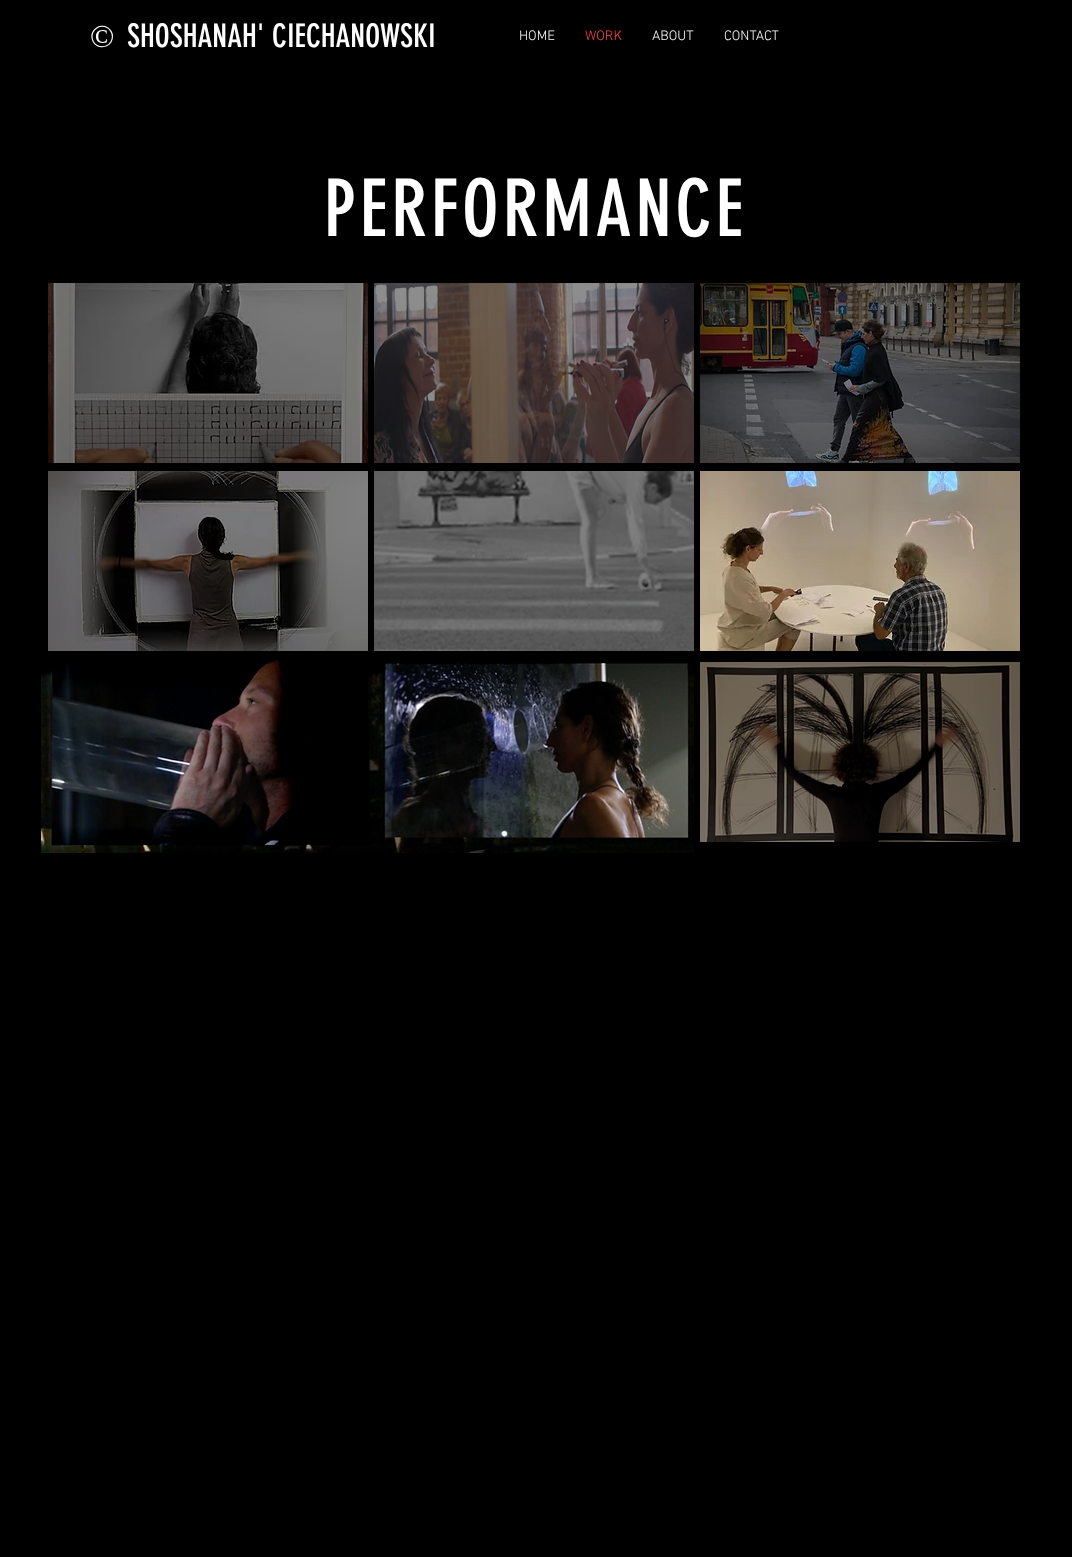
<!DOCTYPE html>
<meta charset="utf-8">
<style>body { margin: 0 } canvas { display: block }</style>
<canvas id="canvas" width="1072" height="1557"></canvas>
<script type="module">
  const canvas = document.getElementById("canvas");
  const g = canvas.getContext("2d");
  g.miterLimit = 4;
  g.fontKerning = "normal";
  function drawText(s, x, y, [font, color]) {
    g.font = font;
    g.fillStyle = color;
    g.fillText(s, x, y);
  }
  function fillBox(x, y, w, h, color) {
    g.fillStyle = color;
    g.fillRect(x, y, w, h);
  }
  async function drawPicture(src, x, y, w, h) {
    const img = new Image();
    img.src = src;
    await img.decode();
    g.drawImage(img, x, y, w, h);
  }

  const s1 = ["32px Liberation Serif", "#FFFFFF"];
  const s2 = ["32px 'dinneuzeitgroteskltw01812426'", "#FFFFFF"];
  const s3 = ["300 14px 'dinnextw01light'", "#FFFFFF"];
  const s4 = ["300 14px 'dinnextw01light'", "#FF4242"];
  const s5 = ["78px 'dinneuzeitgroteskltw01812426'", "#FFFFFF"];

  fillBox(0, 0, 1072, 1557, "#000000");
  drawText("©", 90, 47, s1);
  drawText("SHOSHANAH' CIECHANOWSKI", 127, 47, s2);
  drawText("HOME", 519, 40, s3);
  drawText("WORK", 585, 40, s4);
  drawText("ABOUT", 652, 40, s3);
  drawText("CONTACT", 724, 40, s3);
  g.letterSpacing = "3.9px";
  drawText("PERFORMANCE", 324, 236, s5);
  await drawPicture("pic1.png", 48, 283, 320, 180);
  fillBox(374, 283, 320, 180, "#1A1A1A");
  await drawPicture("pic2.png", 374, 283, 320, 180);
  await drawPicture("pic3.png", 700, 283, 320, 180);
  await drawPicture("pic4.png", 48, 471, 320, 180);
  await drawPicture("pic5.png", 374, 471, 320, 180);
  await drawPicture("pic6.png", 700, 471, 320, 180);
  await drawPicture("pic7.png", 41, 660, 653, 193);
  await drawPicture("pic8.png", 700, 662, 320, 180);
</script>
